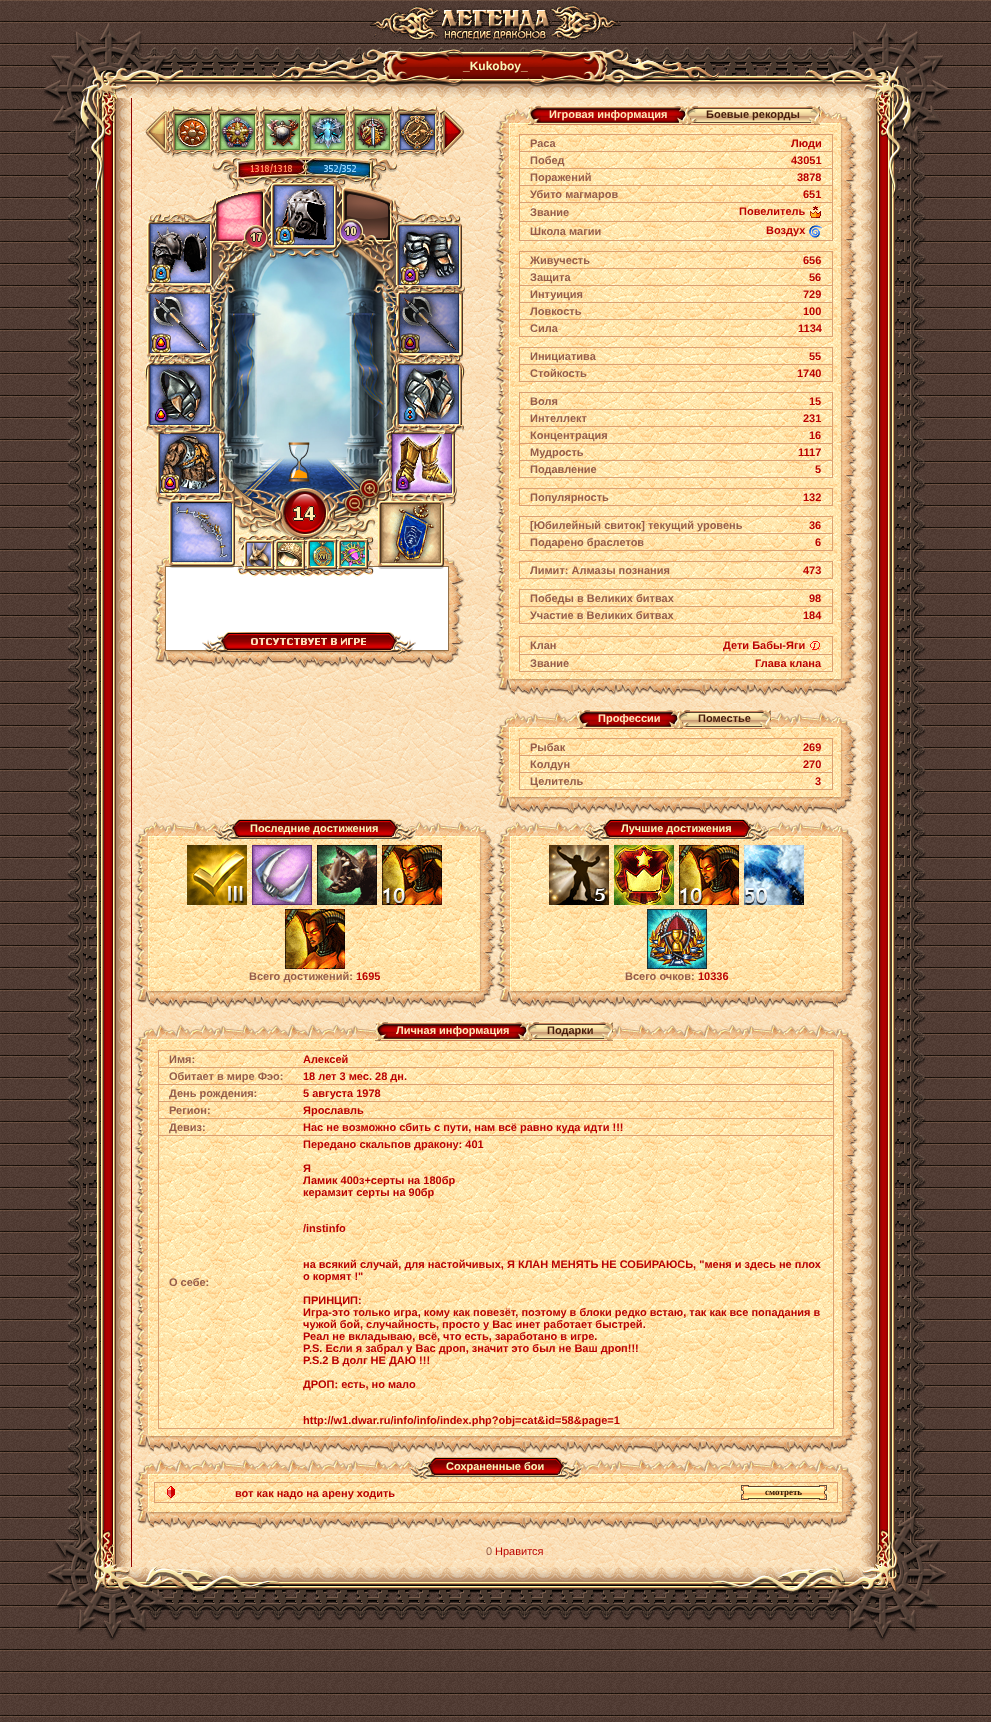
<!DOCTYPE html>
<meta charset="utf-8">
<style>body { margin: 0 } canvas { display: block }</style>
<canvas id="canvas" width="991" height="1722"></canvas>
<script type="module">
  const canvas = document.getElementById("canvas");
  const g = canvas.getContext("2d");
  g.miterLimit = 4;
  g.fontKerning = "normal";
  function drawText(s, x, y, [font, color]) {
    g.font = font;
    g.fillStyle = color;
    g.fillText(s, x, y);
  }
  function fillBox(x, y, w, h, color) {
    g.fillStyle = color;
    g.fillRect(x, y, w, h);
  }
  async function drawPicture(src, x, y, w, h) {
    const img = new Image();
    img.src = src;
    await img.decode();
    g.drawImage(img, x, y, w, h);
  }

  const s1 = ["bold 12px Liberation Sans", "#FAF7B9"];
  const s2 = ["bold 11px Liberation Sans", "#FFE9BA"];
  const s3 = ["bold 11px Liberation Sans", "#461C0B"];
  const s4 = ["bold 11px Liberation Sans", "#955C4A"];
  const s5 = ["bold 11px Liberation Sans", "#BA0000"];
  const s6 = ["bold 11px Liberation Sans", "#FAF7B9"];
  const s7 = ["bold 9px Liberation Serif", "#2D1600"];
  const s8 = ["11px Liberation Sans", "#955C4A"];
  const s9 = ["11px Liberation Sans", "#BA0000"];

  fillBox(0, 0, 991, 1722, "#FFFFFF");
  await drawPicture("pic1.png", 0, 0, 991, 1722);
  await drawPicture("pic2.png", 370, 5, 251, 35);
  await drawPicture("pic4.png", 104, 47, 784, 36);
  await drawPicture("pic8.png", 67, 83, 37, 1499);
  await drawPicture("pic10.png", 132, 98, 729, 1469);
  await drawPicture("pic11.png", 104, 83, 28, 1499);
  await drawPicture("pic12.png", 861, 83, 27, 1499);
  await drawPicture("pic13.png", 116, 83, 760, 15);
  await drawPicture("pic3.png", 43, 23, 140, 175);
  await drawPicture("pic5.png", 271, 49, 193, 38);
  await drawPicture("pic6.png", 463, 49, 257, 38);
  drawText("_Kukoboy_", 463, 70, s1);
  await drawPicture("pic9.png", 888, 83, 38, 1499);
  await drawPicture("pic7.png", 805, 23, 145, 175);
  await drawPicture("pic14.png", 116, 1567, 760, 15);
  await drawPicture("pic15.png", 145, 110, 25, 46);
  await drawPicture("pic16.png", 170, 106, 44, 52);
  await drawPicture("pic17.png", 175, 115, 35, 35);
  await drawPicture("pic18.png", 215, 106, 44, 52);
  await drawPicture("pic19.png", 220, 115, 35, 35);
  await drawPicture("pic20.png", 260, 106, 44, 52);
  await drawPicture("pic21.png", 265, 115, 35, 35);
  await drawPicture("pic22.png", 305, 106, 44, 52);
  await drawPicture("pic23.png", 310, 115, 35, 35);
  await drawPicture("pic24.png", 350, 106, 44, 52);
  await drawPicture("pic25.png", 355, 115, 35, 35);
  await drawPicture("pic26.png", 395, 106, 44, 52);
  await drawPicture("pic27.png", 400, 115, 35, 35);
  await drawPicture("pic28.png", 440, 110, 25, 47);
  await drawPicture("pic30.png", 274, 186, 60, 59);
  await drawPicture("pic31.png", 150, 224, 60, 59);
  await drawPicture("pic32.png", 399, 226, 60, 59);
  await drawPicture("pic33.png", 150, 294, 60, 59);
  await drawPicture("pic34.png", 400, 294, 59, 59);
  await drawPicture("pic35.png", 150, 365, 60, 60);
  await drawPicture("pic36.png", 399, 365, 60, 59);
  await drawPicture("pic37.png", 160, 434, 59, 59);
  await drawPicture("pic38.png", 392, 434, 60, 59);
  await drawPicture("pic39.png", 172, 503, 60, 59);
  await drawPicture("pic40.png", 247, 543, 24, 23);
  await drawPicture("pic41.png", 275, 542, 27, 24);
  await drawPicture("pic42.png", 310, 542, 24, 24);
  await drawPicture("pic43.png", 341, 542, 28, 24);
  await drawPicture("pic44.png", 381, 504, 60, 59);
  await drawPicture("pic29.png", 144, 157, 321, 512);
  await drawPicture("pic45.png", 498, 112, 17, 16);
  await drawPicture("pic46.png", 515, 108, 322, 20);
  await drawPicture("pic47.png", 528, 106, 13, 19);
  await drawPicture("pic48.png", 541, 106, 147, 19);
  drawText("Игровая информация", 549, 118, s2);
  await drawPicture("pic49.png", 685, 106, 13, 19);
  await drawPicture("pic50.png", 698, 106, 122, 19);
  drawText("Боевые рекорды", 706, 118, s3);
  await drawPicture("pic51.png", 837, 112, 16, 16);
  await drawPicture("pic52.png", 495, 128, 20, 502);
  await drawPicture("pic53.png", 515, 128, 322, 502);
  fillBox(519, 134, 314, 1, "#DB9F73");
  fillBox(832, 134, 1, 107, "#DB9F73");
  fillBox(519, 240, 314, 1, "#DB9F73");
  fillBox(519, 134, 1, 107, "#DB9F73");
  drawText("Раса", 530, 147, s4);
  drawText("Люди", 791, 147, s5);
  drawText("Побед", 530, 164, s4);
  fillBox(519, 151, 314, 1, "#DB9F73");
  drawText("43051", 791, 164, s5);
  drawText("Поражений", 530, 181, s4);
  fillBox(519, 168, 314, 1, "#DB9F73");
  drawText("3878", 797, 181, s5);
  drawText("Убито магмаров", 530, 198, s4);
  fillBox(519, 185, 314, 1, "#DB9F73");
  drawText("651", 803, 198, s5);
  drawText("Звание", 530, 216, s4);
  fillBox(519, 202, 314, 1, "#DB9F73");
  drawText("Повелитель", 739, 215, s5);
  await drawPicture("pic54.png", 810, 206, 11, 12);
  drawText("Школа магии", 530, 235, s4);
  fillBox(519, 221, 314, 1, "#DB9F73");
  drawText("Воздух", 766, 234, s5);
  await drawPicture("pic55.png", 809, 225, 13, 13);
  fillBox(519, 251, 314, 1, "#DB9F73");
  fillBox(832, 251, 1, 86, "#DB9F73");
  fillBox(519, 336, 314, 1, "#DB9F73");
  fillBox(519, 251, 1, 86, "#DB9F73");
  drawText("Живучесть", 530, 264, s4);
  drawText("656", 803, 264, s5);
  drawText("Защита", 530, 281, s4);
  fillBox(519, 268, 314, 1, "#DB9F73");
  drawText("56", 809, 281, s5);
  drawText("Интуиция", 530, 298, s4);
  fillBox(519, 285, 314, 1, "#DB9F73");
  drawText("729", 803, 298, s5);
  drawText("Ловкость", 530, 315, s4);
  fillBox(519, 302, 314, 1, "#DB9F73");
  drawText("100", 803, 315, s5);
  drawText("Сила", 530, 332, s4);
  fillBox(519, 319, 314, 1, "#DB9F73");
  drawText("1134", 798, 332, s5);
  fillBox(519, 347, 314, 1, "#DB9F73");
  fillBox(832, 347, 1, 35, "#DB9F73");
  fillBox(519, 381, 314, 1, "#DB9F73");
  fillBox(519, 347, 1, 35, "#DB9F73");
  drawText("Инициатива", 530, 360, s4);
  drawText("55", 809, 360, s5);
  drawText("Стойкость", 530, 377, s4);
  fillBox(519, 364, 314, 1, "#DB9F73");
  drawText("1740", 797, 377, s5);
  fillBox(519, 392, 314, 1, "#DB9F73");
  fillBox(832, 392, 1, 86, "#DB9F73");
  fillBox(519, 477, 314, 1, "#DB9F73");
  fillBox(519, 392, 1, 86, "#DB9F73");
  drawText("Воля", 530, 405, s4);
  drawText("15", 809, 405, s5);
  drawText("Интеллект", 530, 422, s4);
  fillBox(519, 409, 314, 1, "#DB9F73");
  drawText("231", 803, 422, s5);
  drawText("Концентрация", 530, 439, s4);
  fillBox(519, 426, 314, 1, "#DB9F73");
  drawText("16", 809, 439, s5);
  drawText("Мудрость", 530, 456, s4);
  fillBox(519, 443, 314, 1, "#DB9F73");
  drawText("1117", 798, 456, s5);
  drawText("Подавление", 530, 473, s4);
  fillBox(519, 460, 314, 1, "#DB9F73");
  drawText("5", 815, 473, s5);
  fillBox(519, 488, 314, 1, "#DB9F73");
  fillBox(832, 488, 1, 18, "#DB9F73");
  fillBox(519, 505, 314, 1, "#DB9F73");
  fillBox(519, 488, 1, 18, "#DB9F73");
  drawText("Популярность", 530, 501, s4);
  drawText("132", 803, 501, s5);
  fillBox(519, 516, 314, 1, "#DB9F73");
  fillBox(832, 516, 1, 35, "#DB9F73");
  fillBox(519, 550, 314, 1, "#DB9F73");
  fillBox(519, 516, 1, 35, "#DB9F73");
  drawText("[Юбилейный свиток] текущий уровень", 530, 529, s4);
  drawText("36", 809, 529, s5);
  drawText("Подарено браслетов", 530, 546, s4);
  fillBox(519, 533, 314, 1, "#DB9F73");
  drawText("6", 815, 546, s5);
  fillBox(519, 561, 314, 1, "#DB9F73");
  fillBox(832, 561, 1, 18, "#DB9F73");
  fillBox(519, 578, 314, 1, "#DB9F73");
  fillBox(519, 561, 1, 18, "#DB9F73");
  drawText("Лимит: Алмазы познания", 530, 574, s4);
  drawText("473", 803, 574, s5);
  fillBox(519, 589, 314, 1, "#DB9F73");
  fillBox(832, 589, 1, 35, "#DB9F73");
  fillBox(519, 623, 314, 1, "#DB9F73");
  fillBox(519, 589, 1, 35, "#DB9F73");
  drawText("Победы в Великих битвах", 530, 602, s4);
  drawText("98", 809, 602, s5);
  drawText("Участие в Великих битвах", 530, 619, s4);
  fillBox(519, 606, 314, 1, "#DB9F73");
  drawText("184", 803, 619, s5);
  await drawPicture("pic56.png", 837, 128, 20, 502);
  await drawPicture("pic57.png", 495, 630, 20, 48);
  await drawPicture("pic58.png", 515, 630, 322, 48);
  fillBox(519, 636, 314, 1, "#DB9F73");
  fillBox(832, 636, 1, 36, "#DB9F73");
  fillBox(519, 671, 314, 1, "#DB9F73");
  fillBox(519, 636, 1, 36, "#DB9F73");
  drawText("Клан", 530, 649, s4);
  drawText("Дети Бабы-Яги", 723, 649, s5);
  await drawPicture("pic59.png", 810, 641, 10, 9);
  drawText("Звание", 530, 667, s4);
  fillBox(519, 654, 314, 1, "#DB9F73");
  drawText("Глава клана", 755, 667, s5);
  await drawPicture("pic60.png", 837, 630, 20, 48);
  await drawPicture("pic61.png", 498, 678, 17, 17);
  await drawPicture("pic62.png", 515, 678, 322, 19);
  await drawPicture("pic63.png", 837, 678, 15, 15);
  await drawPicture("pic64.png", 498, 716, 17, 16);
  await drawPicture("pic65.png", 515, 712, 322, 20);
  await drawPicture("pic66.png", 577, 710, 13, 19);
  await drawPicture("pic67.png", 590, 710, 90, 19);
  drawText("Профессии", 598, 722, s2);
  await drawPicture("pic68.png", 677, 710, 13, 19);
  await drawPicture("pic69.png", 690, 710, 81, 19);
  drawText("Поместье", 698, 722, s3);
  await drawPicture("pic70.png", 837, 716, 16, 16);
  await drawPicture("pic71.png", 495, 732, 20, 64);
  await drawPicture("pic72.png", 515, 732, 322, 64);
  fillBox(519, 738, 314, 1, "#DB9F73");
  fillBox(832, 738, 1, 52, "#DB9F73");
  fillBox(519, 789, 314, 1, "#DB9F73");
  fillBox(519, 738, 1, 52, "#DB9F73");
  drawText("Рыбак", 530, 751, s4);
  drawText("269", 803, 751, s5);
  drawText("Колдун", 530, 768, s4);
  fillBox(519, 755, 314, 1, "#DB9F73");
  drawText("270", 803, 768, s5);
  drawText("Целитель", 530, 785, s4);
  fillBox(519, 772, 314, 1, "#DB9F73");
  drawText("3", 815, 785, s5);
  await drawPicture("pic73.png", 837, 732, 20, 64);
  await drawPicture("pic74.png", 498, 796, 17, 17);
  await drawPicture("pic75.png", 515, 796, 322, 19);
  await drawPicture("pic76.png", 837, 796, 15, 15);
  await drawPicture("pic77.png", 137, 825, 17, 16);
  await drawPicture("pic78.png", 154, 821, 322, 20);
  await drawPicture("pic79.png", 213, 819, 27, 22);
  await drawPicture("pic80.png", 240, 819, 149, 20);
  drawText("Последние достижения", 250, 832, s6);
  await drawPicture("pic81.png", 389, 819, 27, 22);
  await drawPicture("pic82.png", 476, 825, 16, 16);
  await drawPicture("pic83.png", 134, 841, 20, 129);
  await drawPicture("pic84.png", 154, 841, 322, 129);
  await drawPicture("pic85.png", 187, 845, 60, 60);
  await drawPicture("pic86.png", 252, 845, 60, 60);
  await drawPicture("pic87.png", 317, 845, 60, 60);
  await drawPicture("pic88.png", 382, 845, 60, 60);
  await drawPicture("pic89.png", 285, 909, 60, 60);
  await drawPicture("pic90.png", 476, 841, 20, 129);
  await drawPicture("pic91.png", 134, 970, 20, 20);
  await drawPicture("pic92.png", 154, 970, 322, 20);
  drawText("Всего достижений:", 249, 980, s4);
  drawText("1695", 356, 980, s5);
  await drawPicture("pic93.png", 476, 970, 20, 20);
  await drawPicture("pic94.png", 137, 990, 17, 17);
  await drawPicture("pic95.png", 154, 990, 322, 19);
  await drawPicture("pic96.png", 476, 990, 15, 15);
  await drawPicture("pic97.png", 499, 825, 17, 16);
  await drawPicture("pic98.png", 516, 821, 322, 20);
  await drawPicture("pic99.png", 584, 819, 27, 22);
  await drawPicture("pic100.png", 611, 819, 131, 20);
  drawText("Лучшие достижения", 621, 832, s6);
  await drawPicture("pic101.png", 742, 819, 27, 22);
  await drawPicture("pic102.png", 838, 825, 16, 16);
  await drawPicture("pic103.png", 496, 841, 20, 129);
  await drawPicture("pic84.png", 516, 841, 322, 129);
  await drawPicture("pic104.png", 549, 845, 60, 60);
  await drawPicture("pic105.png", 614, 845, 60, 60);
  await drawPicture("pic88.png", 679, 845, 60, 60);
  await drawPicture("pic106.png", 744, 845, 60, 60);
  await drawPicture("pic107.png", 647, 909, 60, 60);
  await drawPicture("pic108.png", 838, 841, 20, 129);
  await drawPicture("pic109.png", 496, 970, 20, 20);
  await drawPicture("pic92.png", 516, 970, 322, 20);
  drawText("Всего очков:", 625, 980, s4);
  drawText("10336", 698, 980, s5);
  await drawPicture("pic110.png", 838, 970, 20, 20);
  await drawPicture("pic111.png", 499, 990, 17, 17);
  await drawPicture("pic112.png", 516, 990, 322, 19);
  await drawPicture("pic113.png", 838, 990, 15, 15);
  await drawPicture("pic114.png", 137, 1028, 17, 16);
  await drawPicture("pic115.png", 154, 1024, 684, 20);
  await drawPicture("pic116.png", 375, 1022, 13, 19);
  await drawPicture("pic117.png", 388, 1022, 141, 19);
  drawText("Личная информация", 396, 1034, s2);
  await drawPicture("pic118.png", 526, 1022, 13, 19);
  await drawPicture("pic119.png", 539, 1022, 74, 19);
  drawText("Подарки", 547, 1034, s3);
  await drawPicture("pic120.png", 838, 1028, 16, 16);
  await drawPicture("pic121.png", 134, 1044, 20, 391);
  await drawPicture("pic122.png", 154, 1044, 684, 391);
  fillBox(158, 1050, 676, 1, "#DB9F73");
  fillBox(833, 1050, 1, 379, "#DB9F73");
  fillBox(158, 1428, 676, 1, "#DB9F73");
  fillBox(158, 1050, 1, 379, "#DB9F73");
  drawText("Имя:", 169, 1063, s4);
  drawText("Алексей", 303, 1063, s5);
  drawText("Обитает в мире Фэо:", 169, 1080, s4);
  fillBox(158, 1067, 676, 1, "#DB9F73");
  drawText("18 лет 3 мес. 28 дн.", 303, 1080, s5);
  drawText("День рождения:", 169, 1097, s4);
  fillBox(158, 1084, 676, 1, "#DB9F73");
  drawText("5 августа 1978", 303, 1097, s5);
  drawText("Регион:", 169, 1114, s4);
  fillBox(158, 1101, 676, 1, "#DB9F73");
  drawText("Ярославль", 303, 1114, s5);
  drawText("Девиз:", 169, 1131, s4);
  fillBox(158, 1118, 676, 1, "#DB9F73");
  drawText("Нас не возможно сбить с пути, нам всё равно куда идти !!!", 303, 1131, s5);
  drawText("О себе:", 169, 1286, s4);
  fillBox(158, 1135, 676, 1, "#DB9F73");
  drawText("Передано скальпов дракону: 401", 303, 1148, s5);
  drawText("Я", 303, 1172, s5);
  drawText("Ламик 400з+серты на 180бр", 303, 1184, s5);
  drawText("керамзит серты на 90бр", 303, 1196, s5);
  drawText("/instinfo", 303, 1232, s5);
  drawText("на всякий случай, для настойчивых, Я КЛАН МЕНЯТЬ НЕ СОБИРАЮСЬ, \"меня и здесь не плох", 303, 1268, s5);
  drawText("о кормят !\"", 303, 1280, s5);
  drawText("ПРИНЦИП:", 303, 1304, s5);
  drawText("Игра-это только игра, кому как повезёт, поэтому в блоки редко встаю, так как все попадания в", 303, 1316, s5);
  drawText("чужой бой, случайность, просто у Вас инет работает быстрей.", 303, 1328, s5);
  drawText("Реал не вкладываю, всё, что есть, заработано в игре.", 303, 1340, s5);
  drawText("P.S. Если я забрал у Вас дроп, значит это был не Ваш дроп!!!", 303, 1352, s5);
  drawText("P.S.2 В долг НЕ ДАЮ !!!", 303, 1364, s5);
  drawText("ДРОП: есть, но мало", 303, 1388, s5);
  drawText("http://w1.dwar.ru/info/info/index.php?obj=cat&id=58&page=1", 303, 1424, s5);
  await drawPicture("pic123.png", 838, 1044, 20, 391);
  await drawPicture("pic124.png", 137, 1435, 17, 17);
  await drawPicture("pic125.png", 154, 1435, 684, 19);
  await drawPicture("pic126.png", 838, 1435, 15, 15);
  await drawPicture("pic127.png", 137, 1463, 17, 16);
  await drawPicture("pic128.png", 154, 1459, 684, 20);
  await drawPicture("pic129.png", 409, 1457, 27, 22);
  await drawPicture("pic130.png", 436, 1457, 119, 20);
  drawText("Сохраненные бои", 446, 1470, s6);
  await drawPicture("pic131.png", 555, 1457, 27, 22);
  await drawPicture("pic132.png", 838, 1463, 16, 16);
  await drawPicture("pic133.png", 134, 1479, 20, 32);
  await drawPicture("pic134.png", 154, 1479, 684, 32);
  fillBox(154, 1482, 684, 1, "#DB9F73");
  fillBox(837, 1482, 1, 21, "#DB9F73");
  fillBox(154, 1502, 684, 1, "#DB9F73");
  fillBox(154, 1482, 1, 21, "#DB9F73");
  await drawPicture("pic135.png", 167, 1486, 8, 12);
  drawText("вот как надо на арену ходить", 235, 1497, s5);
  await drawPicture("pic136.png", 741, 1485, 8, 15);
  await drawPicture("pic137.png", 819, 1485, 8, 15);
  await drawPicture("pic138.png", 749, 1486, 70, 13);
  drawText("смотреть", 765, 1495, s7);
  await drawPicture("pic139.png", 838, 1479, 20, 32);
  await drawPicture("pic145.png", 104, 1582, 784, 39);
  await drawPicture("pic143.png", 47, 1515, 236, 126);
  await drawPicture("pic140.png", 137, 1511, 17, 17);
  await drawPicture("pic144.png", 708, 1515, 239, 126);
  await drawPicture("pic141.png", 154, 1511, 684, 19);
  await drawPicture("pic142.png", 838, 1511, 15, 15);
  drawText("0", 486, 1555, s8);
  drawText("Нравится", 495, 1555, s9);
</script>
